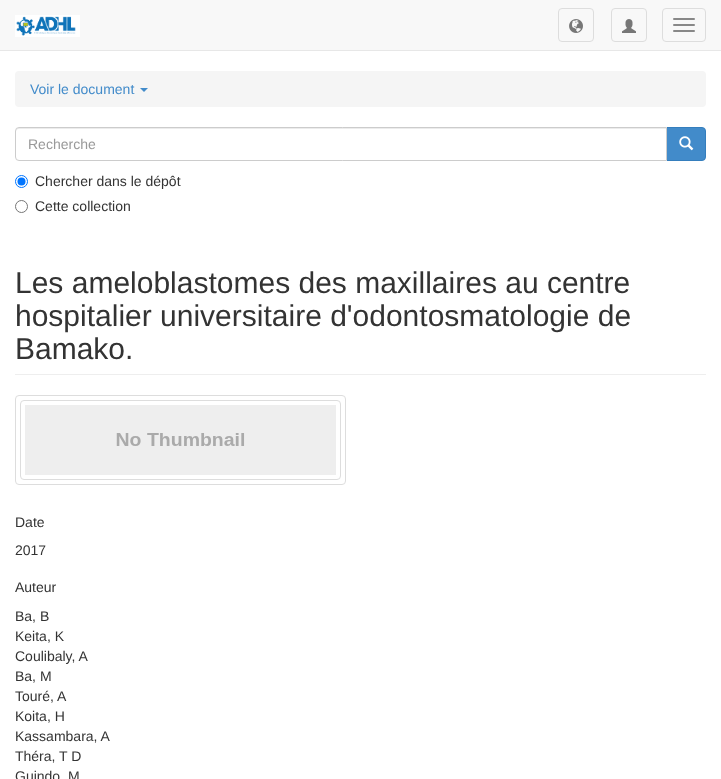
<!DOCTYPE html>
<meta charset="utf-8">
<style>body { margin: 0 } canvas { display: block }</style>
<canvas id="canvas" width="721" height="779"></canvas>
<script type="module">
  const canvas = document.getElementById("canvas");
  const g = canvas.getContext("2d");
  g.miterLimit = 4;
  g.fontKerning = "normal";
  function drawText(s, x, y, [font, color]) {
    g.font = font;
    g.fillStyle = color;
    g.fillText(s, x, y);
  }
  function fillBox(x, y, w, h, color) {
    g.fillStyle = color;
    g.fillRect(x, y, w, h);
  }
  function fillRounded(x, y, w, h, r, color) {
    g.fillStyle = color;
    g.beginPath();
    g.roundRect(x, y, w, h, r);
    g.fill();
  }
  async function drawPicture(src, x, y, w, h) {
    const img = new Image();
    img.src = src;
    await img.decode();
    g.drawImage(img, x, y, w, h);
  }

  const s1 = ["14px Liberation Sans", "#428BCA"];
  const s2 = ["14px Liberation Sans", "#999999"];
  const s3 = ["14px Liberation Sans", "#333333"];
  const s4 = ["30px Liberation Sans", "#333333"];

  fillBox(0, 0, 721, 779, "#FFFFFF");
  fillBox(0, 0, 721, 50, "#F8F8F8");
  fillBox(0, 50, 721, 1, "#E7E7E7");
  await drawPicture("pic1.png", 15, 15, 65, 22);
  g.beginPath();
  g.roundRect(558.5, 8.5, 35, 33, 3.5);
  g.strokeStyle = "#DDDDDD";
  g.stroke();
  await drawPicture("pic2.png", 569, 19, 14, 14);
  g.beginPath();
  g.roundRect(611.5, 8.5, 35, 33, 3.5);
  g.stroke();
  await drawPicture("pic3.png", 622, 19, 14, 14);
  g.beginPath();
  g.roundRect(662.5, 8.5, 43, 33, 3.5);
  g.stroke();
  fillRounded(673, 18, 22, 2, 1, "#888888");
  fillRounded(673, 24, 22, 2, 1, "#888888");
  fillRounded(673, 30, 22, 2, 1, "#888888");
  fillRounded(15, 71, 691, 36, 4, "#F5F5F5");
  drawText("Voir le document", 30, 94, s1);
  g.beginPath();
  g.moveTo(140, 88);
  g.lineTo(148, 88);
  g.lineTo(144, 92);
  g.closePath();
  g.fill();
  g.beginPath();
  g.roundRect(666.5, 127.5, 39, 33, [0, 3.5, 3.5, 0]);
  g.fill();
  g.strokeStyle = "#357EBD";
  g.stroke();
  g.fillStyle = "#FFFFFF";
  g.beginPath();
  g.roundRect(15, 127, 652, 34, [4, 0, 0, 4]);
  g.fill();
  g.fillStyle = "#ECECEC";
  g.beginPath();
  g.moveTo(19, 129);
  g.lineTo(666, 129);
  g.lineTo(666, 128);
  g.lineTo(19, 128);
  g.bezierCurveTo(17, 128, 16, 129, 16, 131);
  g.lineTo(16, 132);
  g.bezierCurveTo(16, 130, 17, 129, 19, 129);
  g.closePath();
  g.fill();
  g.beginPath();
  g.roundRect(15.5, 127.5, 651, 33, [3.5, 0, 0, 3.5]);
  g.strokeStyle = "#CCCCCC";
  g.stroke();
  drawText("Recherche", 28, 149, s2);
  await drawPicture("pic4.png", 679, 136, 15, 15);
  g.beginPath();
  g.arc(21.5, 181.5, 6, 0, Math.PI * 2);
  g.strokeStyle = "#0075FF";
  g.stroke();
  g.fillStyle = "#0075FF";
  g.beginPath();
  g.arc(21.5, 181.5, 4, 0, Math.PI * 2);
  g.fill();
  drawText("Chercher dans le dépôt", 35, 186, s3);
  g.beginPath();
  g.arc(21.5, 206.5, 6, 0, Math.PI * 2);
  g.strokeStyle = "#767676";
  g.stroke();
  drawText("Cette collection", 35, 211, s3);
  fillBox(15, 374, 691, 1, "#EEEEEE");
  drawText("Les ameloblastomes des maxillaires au centre", 15, 293, s4);
  drawText("hospitalier universitaire d'odontosmatologie de", 15, 326, s4);
  drawText("Bamako.", 15, 359, s4);
  g.beginPath();
  g.roundRect(15.5, 395.5, 330, 89, 3.5);
  g.strokeStyle = "#DDDDDD";
  g.stroke();
  g.beginPath();
  g.roundRect(20.5, 400.5, 320, 79, 3.5);
  g.stroke();
  await drawPicture("pic5.png", 25, 405, 311, 70);
  drawText("Date", 15, 527, s3);
  drawText("2017", 15, 555, s3);
  drawText("Auteur", 15, 592, s3);
  drawText("Ba, B", 15, 621, s3);
  drawText("Keita, K", 15, 641, s3);
  drawText("Coulibaly, A", 15, 661, s3);
  drawText("Ba, M", 15, 681, s3);
  drawText("Touré, A", 15, 701, s3);
  drawText("Koita, H", 15, 721, s3);
  drawText("Kassambara, A", 15, 741, s3);
  drawText("Théra, T D", 15, 761, s3);
  drawText("Guindo, M", 15, 781, s3);
</script>
